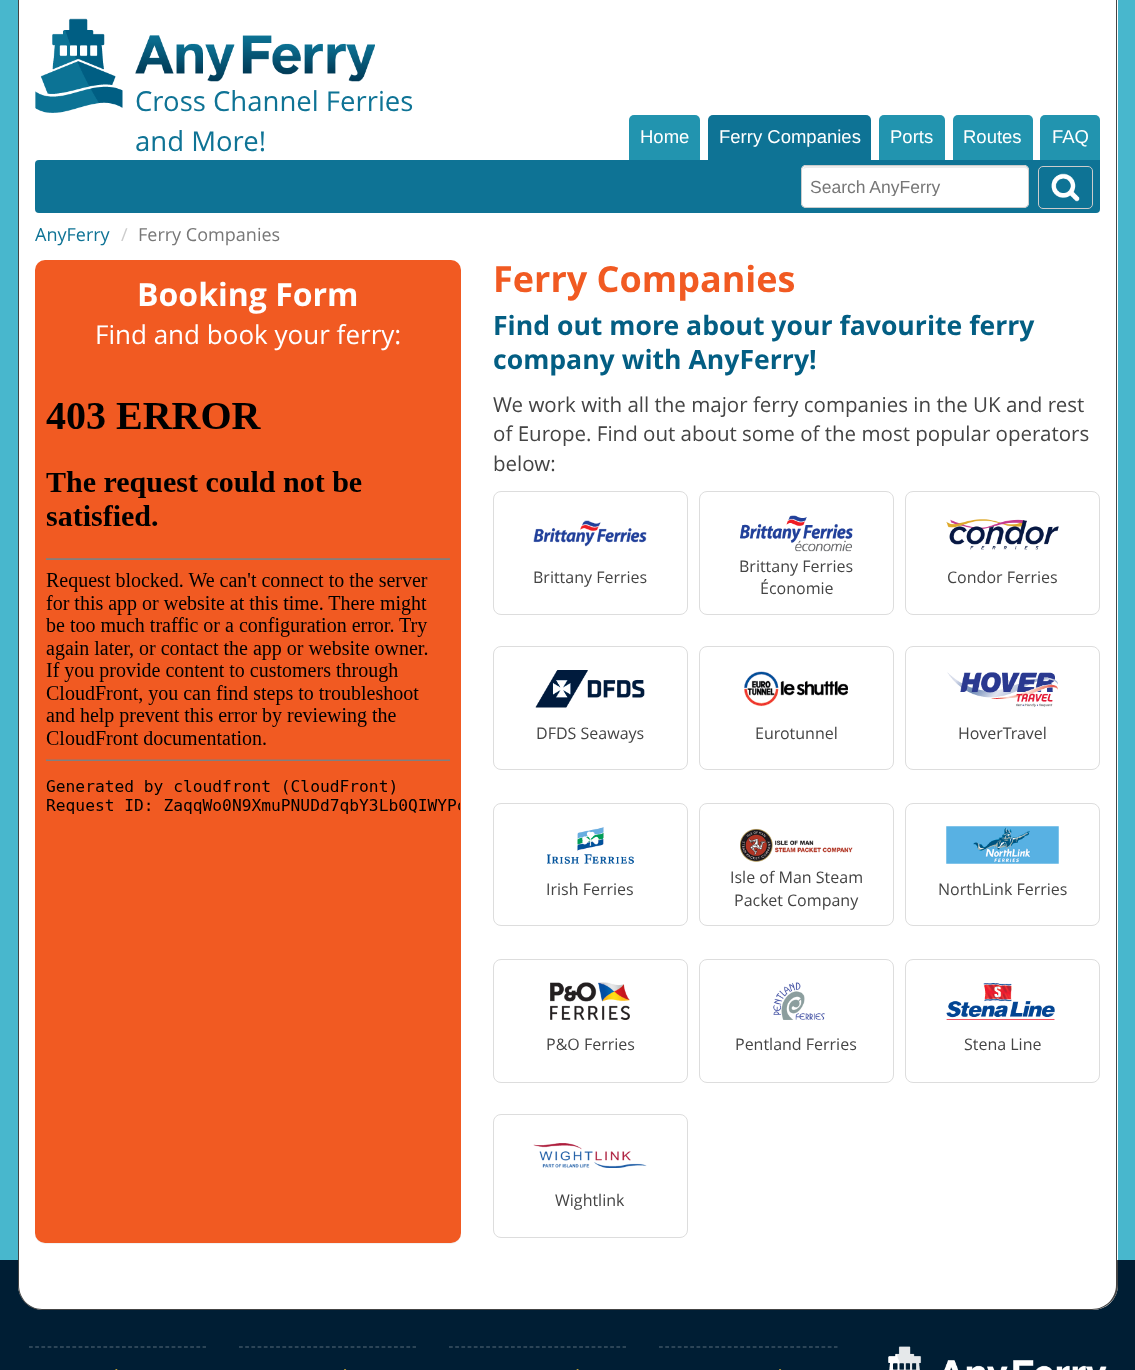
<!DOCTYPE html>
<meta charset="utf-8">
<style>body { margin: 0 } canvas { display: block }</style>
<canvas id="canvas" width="1135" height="1370"></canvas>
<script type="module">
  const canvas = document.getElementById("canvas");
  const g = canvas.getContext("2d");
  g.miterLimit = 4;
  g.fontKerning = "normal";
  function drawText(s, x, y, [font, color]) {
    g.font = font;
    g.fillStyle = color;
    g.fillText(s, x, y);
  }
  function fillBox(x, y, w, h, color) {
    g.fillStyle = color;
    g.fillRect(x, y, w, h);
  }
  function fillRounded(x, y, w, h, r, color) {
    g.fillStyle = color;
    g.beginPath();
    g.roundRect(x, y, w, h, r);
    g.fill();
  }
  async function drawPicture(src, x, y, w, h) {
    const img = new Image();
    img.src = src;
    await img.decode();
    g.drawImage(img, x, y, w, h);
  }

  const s1 = ["27.5px Open Sans", "#0E7395"];
  const s2 = ["18.5px Liberation Sans", "#FFFFFF"];
  const s3 = ["17.5px Liberation Sans", "#777777"];
  const s4 = ["18px Open Sans", "#0E7395"];
  const s5 = ["18px Open Sans", "#CCCCCC"];
  const s6 = ["18px Open Sans", "#777777"];
  const s7 = ["bold 32px Open Sans", "#FFFFFF"];
  const s8 = ["26px Open Sans", "#FFFFFF"];
  const s9 = ["bold 36px Open Sans", "#F15A22"];
  const s10 = ["bold 26.6px Open Sans", "#035E83"];
  const s11 = ["20.5px Open Sans", "#444444"];
  const s12 = ["16px Open Sans", "#444444"];

  fillBox(0, 0, 1135, 1370, "#48B7CD");
  fillBox(19, 0, 1099, 1260, "#FFFFFF");
  fillBox(1116, 0, 1, 1260, "#444444");
  fillBox(18, 0, 1, 1260, "#444444");
  await drawPicture("pic1.png", 35, 18, 88, 95);
  await drawPicture("pic2.png", 135, 35, 240, 47);
  drawText("Cross Channel Ferries", 135, 111, s1);
  drawText("and More!", 135, 151, s1);
  g.fillStyle = "#2294AF";
  g.beginPath();
  g.roundRect(629, 115, 71, 45, [5, 5, 0, 0]);
  g.fill();
  drawText("Home", 640, 143, s2);
  g.fillStyle = "#0E7395";
  g.beginPath();
  g.roundRect(708, 115, 163, 45, [5, 5, 0, 0]);
  g.fill();
  drawText("Ferry Companies", 719, 143, s2);
  g.fillStyle = "#2294AF";
  g.beginPath();
  g.roundRect(879, 115, 66, 45, [5, 5, 0, 0]);
  g.fill();
  drawText("Ports", 890, 143, s2);
  g.fillStyle = "#2294AF";
  g.beginPath();
  g.roundRect(953, 115, 80, 45, [5, 5, 0, 0]);
  g.fill();
  drawText("Routes", 963, 143, s2);
  g.fillStyle = "#2294AF";
  g.beginPath();
  g.roundRect(1040, 115, 60, 45, [5, 5, 0, 0]);
  g.fill();
  drawText("FAQ", 1052, 143, s2);
  g.fillStyle = "#0E7395";
  g.beginPath();
  g.roundRect(35, 160, 1065, 53, [4, 0, 4, 4]);
  g.fill();
  fillRounded(801, 165, 228, 43, 5, "#FFFFFF");
  g.fillStyle = "#ECECEC";
  g.beginPath();
  g.moveTo(806, 168);
  g.lineTo(1024, 168);
  g.bezierCurveTo(1026, 168, 1028, 169, 1028, 171);
  g.lineTo(1028, 170);
  g.bezierCurveTo(1028, 168, 1026, 166, 1024, 166);
  g.lineTo(807, 166);
  g.bezierCurveTo(805, 166, 804, 167, 803, 169);
  g.closePath();
  g.fill();
  g.beginPath();
  g.roundRect(801.5, 165.5, 227, 42, 4.5);
  g.strokeStyle = "#CCCCCC";
  g.stroke();
  g.save();
  g.beginPath();
  g.rect(810, 176, 218, 20);
  g.clip();
  drawText("Search AnyFerry", 810, 193, s3);
  g.restore();
  g.beginPath();
  g.roundRect(1038.5, 166.5, 54, 42, 4.5);
  g.stroke();
  await drawPicture("pic3.png", 1051, 173, 29, 29);
  drawText("AnyFerry", 35, 241, s4);
  drawText("/", 121, 241, s5);
  drawText("Ferry Companies", 138, 241, s6);
  g.fillStyle = "rgba(0, 0, 0, 0.05)";
  g.filter = "blur(0.5px)";
  g.beginPath();
  g.roundRect(35, 261, 426, 983, 10);
  g.fill();
  g.filter = "none";
  fillRounded(35, 260, 426, 983, 10, "#F15A22");
  drawText("Booking Form", 137, 306, s7);
  drawText("Find and book your ferry:", 95, 344, s8);
  await drawPicture("pic4.png", 46, 403, 414, 411);
  drawText("Ferry Companies", 493, 292, s9);
  drawText("Find out more about your favourite ferry", 493, 335, s10);
  drawText("company with AnyFerry!", 493, 369, s10);
  drawText("We work with all the major ferry companies in the UK and rest", 493, 412, s11);
  drawText("of Europe. Find out about some of the most popular operators", 493, 441, s11);
  drawText("below:", 493, 471, s11);
  g.beginPath();
  g.roundRect(493.5, 491.5, 194, 123, 7.5);
  g.strokeStyle = "#DDDDDD";
  g.stroke();
  await drawPicture("pic5.png", 533, 520, 114, 27);
  drawText("Brittany Ferries", 533, 583, s12);
  g.beginPath();
  g.roundRect(699.5, 491.5, 194, 123, 7.5);
  g.stroke();
  await drawPicture("pic6.png", 740, 515, 113, 37);
  drawText("Brittany Ferries", 739, 572, s12);
  drawText("Économie", 760, 594, s12);
  g.beginPath();
  g.roundRect(905.5, 491.5, 194, 123, 7.5);
  g.stroke();
  await drawPicture("pic7.png", 946, 519, 113, 31);
  drawText("Condor Ferries", 947, 583, s12);
  g.beginPath();
  g.roundRect(493.5, 646.5, 194, 123, 7.5);
  g.stroke();
  await drawPicture("pic8.png", 535, 670, 110, 38);
  drawText("DFDS Seaways", 536, 739, s12);
  g.beginPath();
  g.roundRect(699.5, 646.5, 194, 123, 7.5);
  g.stroke();
  await drawPicture("pic9.png", 744, 671, 104, 36);
  drawText("Eurotunnel", 755, 739, s12);
  g.beginPath();
  g.roundRect(905.5, 646.5, 194, 123, 7.5);
  g.stroke();
  await drawPicture("pic10.png", 947, 672, 111, 35);
  drawText("HoverTravel", 958, 739, s12);
  g.beginPath();
  g.roundRect(493.5, 803.5, 194, 122, 7.5);
  g.stroke();
  await drawPicture("pic11.png", 547, 827, 87, 37);
  drawText("Irish Ferries", 546, 895, s12);
  g.beginPath();
  g.roundRect(699.5, 803.5, 194, 122, 7.5);
  g.stroke();
  await drawPicture("pic12.png", 740, 828, 113, 34);
  drawText("Isle of Man Steam", 730, 883, s12);
  drawText("Packet Company", 734, 906, s12);
  g.beginPath();
  g.roundRect(905.5, 803.5, 194, 122, 7.5);
  g.stroke();
  await drawPicture("pic13.png", 946, 826, 113, 38);
  drawText("NorthLink Ferries", 938, 895, s12);
  g.beginPath();
  g.roundRect(493.5, 959.5, 194, 123, 7.5);
  g.stroke();
  await drawPicture("pic14.png", 550, 982, 80, 38);
  drawText("P&O Ferries", 546, 1050, s12);
  g.beginPath();
  g.roundRect(699.5, 959.5, 194, 123, 7.5);
  g.stroke();
  await drawPicture("pic15.png", 773, 982, 52, 38);
  drawText("Pentland Ferries", 735, 1050, s12);
  g.beginPath();
  g.roundRect(905.5, 959.5, 194, 123, 7.5);
  g.stroke();
  await drawPicture("pic16.png", 946, 983, 109, 37);
  drawText("Stena Line", 964, 1050, s12);
  g.beginPath();
  g.roundRect(493.5, 1114.5, 194, 123, 7.5);
  g.stroke();
  await drawPicture("pic17.png", 533, 1143, 114, 25);
  drawText("Wightlink", 555, 1206, s12);
  fillBox(0, 1260, 1135, 110, "#001E34");
  g.fillStyle = "#FFFFFF";
  g.beginPath();
  g.roundRect(18, 1260, 1100, 50, [0, 0, 25, 25]);
  g.fill();
  g.fillStyle = "#444444";
  g.beginPath();
  g.moveTo(18, 1260);
  g.lineTo(1118, 1260);
  g.lineTo(1118, 1285);
  g.bezierCurveTo(1118, 1299, 1106, 1310, 1092, 1310);
  g.lineTo(42, 1310);
  g.bezierCurveTo(29, 1310, 18, 1299, 18, 1285);
  g.closePath();
  g.moveTo(19, 1260);
  g.lineTo(1116, 1260);
  g.lineTo(1116, 1285);
  g.bezierCurveTo(1116, 1298, 1106, 1309, 1092, 1309);
  g.lineTo(42, 1309);
  g.bezierCurveTo(29, 1309, 19, 1298, 19, 1285);
  g.closePath();
  g.fill("evenodd");
  g.beginPath();
  g.moveTo(29, 1347);
  g.lineTo(206, 1347);
  g.strokeStyle = "#596D7B";
  g.lineWidth = 1.2;
  g.setLineDash([3.75, 2.45]);
  g.stroke();
  await drawPicture("pic18.png", 115, 1369, 3, 1);
  g.beginPath();
  g.moveTo(239, 1347);
  g.lineTo(416, 1347);
  g.stroke();
  await drawPicture("pic19.png", 344, 1369, 3, 1);
  g.beginPath();
  g.moveTo(449, 1347);
  g.lineTo(626, 1347);
  g.stroke();
  await drawPicture("pic20.png", 576, 1369, 3, 1);
  g.beginPath();
  g.moveTo(659, 1347);
  g.lineTo(837.5, 1347);
  g.setLineDash([3.75, 2.5]);
  g.stroke();
  await drawPicture("pic19.png", 779, 1369, 3, 1);
  await drawPicture("pic21.png", 888, 1346, 219, 24);
</script>
